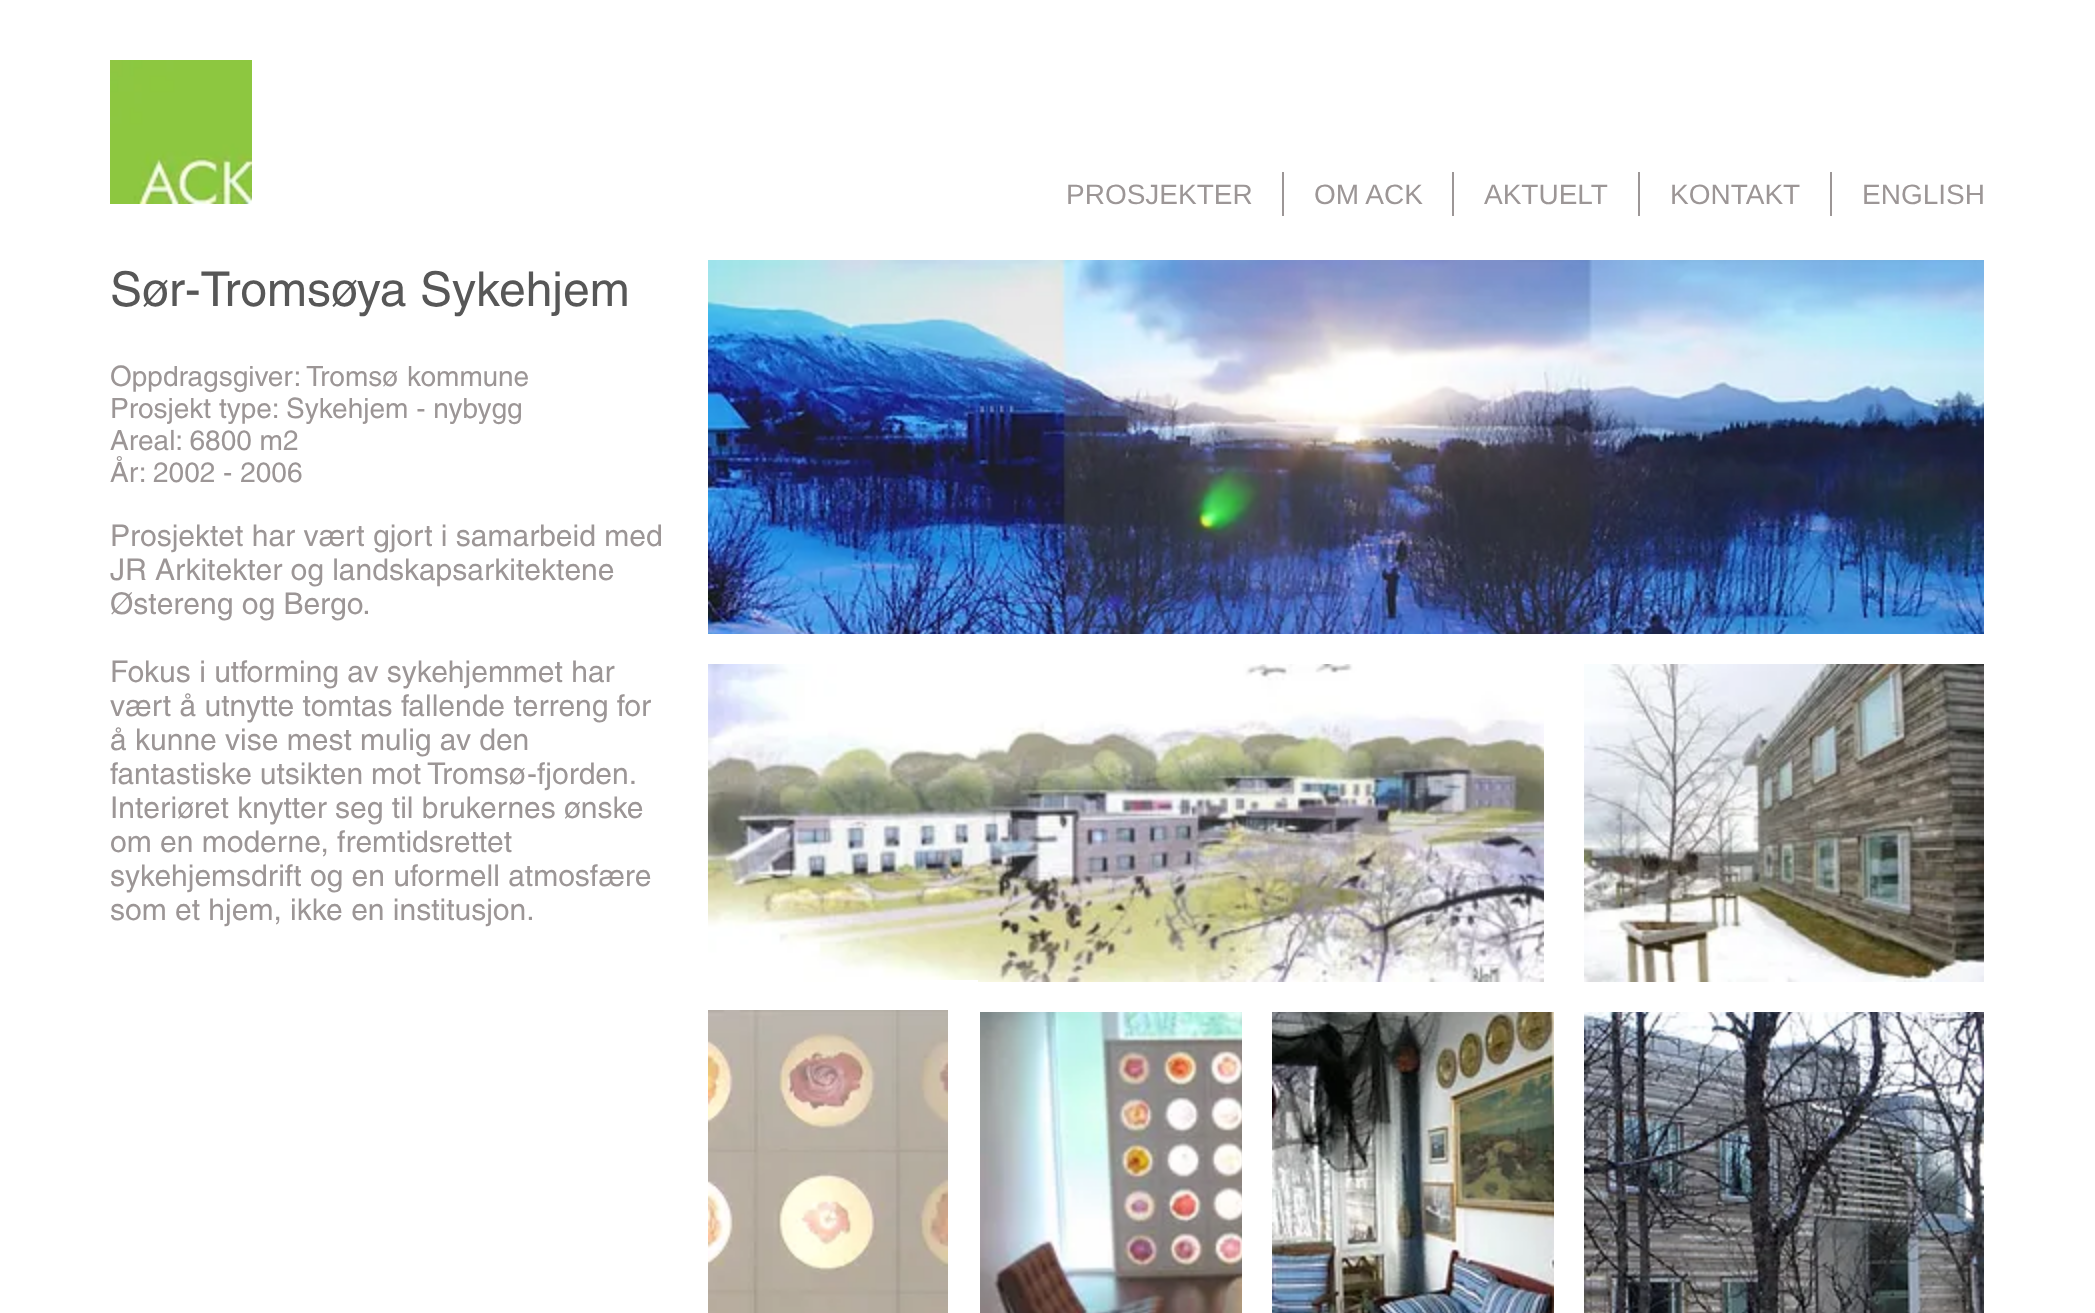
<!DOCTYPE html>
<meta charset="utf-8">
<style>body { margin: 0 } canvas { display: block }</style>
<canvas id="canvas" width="2095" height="1313"></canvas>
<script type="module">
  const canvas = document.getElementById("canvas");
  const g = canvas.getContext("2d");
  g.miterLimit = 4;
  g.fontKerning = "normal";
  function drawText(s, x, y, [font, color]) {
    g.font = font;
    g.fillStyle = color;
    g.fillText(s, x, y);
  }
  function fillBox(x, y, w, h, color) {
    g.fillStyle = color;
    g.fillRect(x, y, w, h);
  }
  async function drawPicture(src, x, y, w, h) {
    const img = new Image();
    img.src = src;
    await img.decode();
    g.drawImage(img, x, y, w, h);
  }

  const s1 = ["28px Liberation Sans", "#9C9696"];
  const s2 = ["48px helvetica", "#575757"];
  const s3 = ["28px helvetica", "#9C9696"];
  const s4 = ["30px helvetica", "#9C9696"];

  fillBox(0, 0, 2095, 1313, "#FFFFFF");
  await drawPicture("pic1.png", 110, 60, 142, 144);
  drawText("PROSJEKTER", 1066, 204, s1);
  fillBox(1282, 172, 2, 44, "#9C9696");
  drawText("OM ACK", 1314, 204, s1);
  fillBox(1452, 172, 2, 44, "#9C9696");
  drawText("AKTUELT", 1484, 204, s1);
  fillBox(1638, 172, 2, 44, "#9C9696");
  drawText("KONTAKT", 1670, 204, s1);
  fillBox(1830, 172, 2, 44, "#9C9696");
  drawText("ENGLISH", 1862, 204, s1);
  drawText("Sør-Tromsøya Sykehjem", 110, 306, s2);
  await drawPicture("pic2.png", 708, 260, 1276, 374);
  drawText("Oppdragsgiver: Tromsø kommune", 110, 386, s3);
  drawText("Prosjekt type: Sykehjem - nybygg", 110, 418, s3);
  drawText("Areal: 6800 m2", 110, 450, s3);
  drawText("År: 2002 - 2006", 110, 482, s3);
  drawText("Prosjektet har vært gjort i samarbeid med", 110, 546, s4);
  drawText("JR Arkitekter og landskapsarkitektene", 110, 580, s4);
  drawText("Østereng og Bergo.", 110, 614, s4);
  drawText("Fokus i utforming av sykehjemmet har", 110, 682, s4);
  drawText("vært å utnytte tomtas fallende terreng for", 110, 716, s4);
  drawText("å kunne vise mest mulig av den", 110, 750, s4);
  g.wordSpacing = "-0.5px";
  drawText("fantastiske utsikten mot Tromsø-fjorden.", 110, 784, s4);
  g.wordSpacing = "0px";
  drawText("Interiøret knytter seg til brukernes ønske", 110, 818, s4);
  drawText("om en moderne, fremtidsrettet", 110, 852, s4);
  drawText("sykehjemsdrift og en uformell atmosfære", 110, 886, s4);
  drawText("som et hjem, ikke en institusjon.", 110, 920, s4);
  await drawPicture("pic3.png", 708, 664, 836, 318);
  await drawPicture("pic4.png", 1584, 664, 400, 318);
  fillBox(919, 980, 59, 2, "#FFFFFF");
  await drawPicture("pic5.png", 708, 1010, 240, 303);
  await drawPicture("pic6.png", 980, 1012, 262, 301);
  await drawPicture("pic7.png", 1272, 1012, 282, 301);
  await drawPicture("pic8.png", 1584, 1012, 400, 301);
</script>
